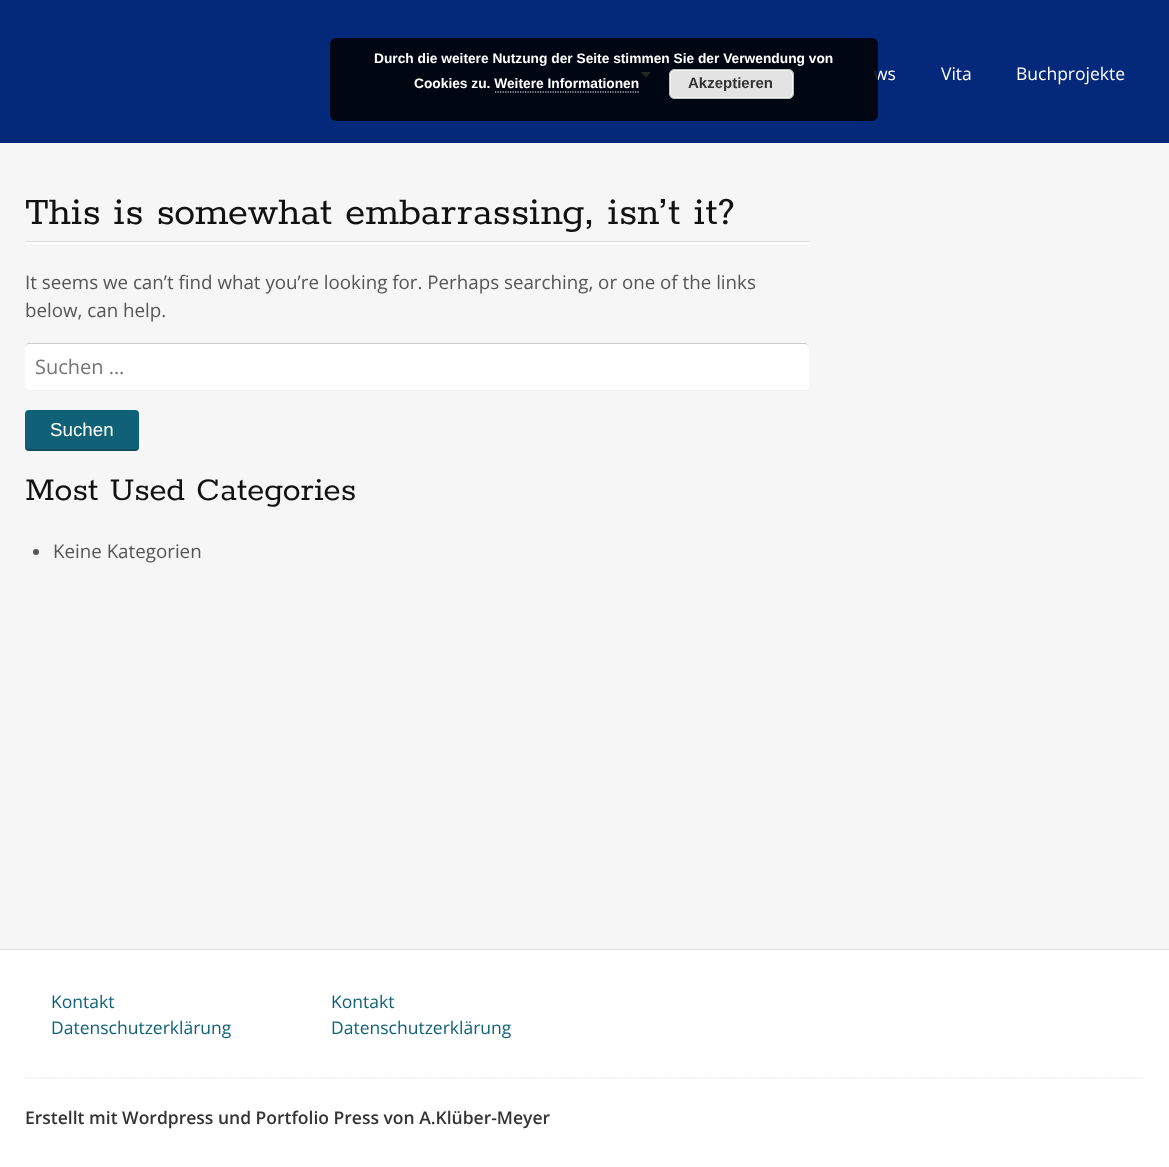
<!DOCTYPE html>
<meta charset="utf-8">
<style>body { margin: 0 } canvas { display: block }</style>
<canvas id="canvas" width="1169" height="1167"></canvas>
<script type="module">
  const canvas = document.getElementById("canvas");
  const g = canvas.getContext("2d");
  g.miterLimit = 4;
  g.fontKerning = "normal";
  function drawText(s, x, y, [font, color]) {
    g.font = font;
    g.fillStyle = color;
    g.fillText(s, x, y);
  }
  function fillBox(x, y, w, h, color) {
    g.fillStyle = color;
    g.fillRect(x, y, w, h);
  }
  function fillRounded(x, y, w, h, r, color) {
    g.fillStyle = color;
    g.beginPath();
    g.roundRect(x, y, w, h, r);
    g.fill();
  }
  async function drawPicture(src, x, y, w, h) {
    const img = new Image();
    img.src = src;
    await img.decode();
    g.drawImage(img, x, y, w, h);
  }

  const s1 = ["17.5px Open Sans", "#FFFFFF"];
  const s2 = ["bold 13.75px Liberation Sans", "#FFFFFF"];
  const s3 = ["bold 15px Liberation Sans", "#333333"];
  const s4 = ["42.5px Rokkitt", "#111111"];
  const s5 = ["18.75px Open Sans", "#555555"];
  const s6 = ["20px Open Sans", "#757575"];
  const s7 = ["18.75px Liberation Sans", "#FFFFFF"];
  const s8 = ["36.25px Rokkitt", "#111111"];
  const s9 = ["17.5px Open Sans", "#106177"];
  const s10 = ["600 17.5px Open Sans", "#333333"];

  fillBox(0, 0, 1169, 1167, "#F6F6F6");
  fillBox(0, 0, 1169, 143, "#04287A");
  await drawPicture("pic1.png", 641, 72, 10, 6);
  drawText("ws", 874, 80, s1);
  fillRounded(330, 38, 548, 83, 6, "rgba(0, 0, 0, 0.85)");
  drawText("Durch die weitere Nutzung der Seite stimmen Sie der Verwendung von", 374, 63, s2);
  drawText("Cookies zu. Weitere Informationen", 414, 88, s2);
  fillRounded(669, 69, 125, 30, 6, "#E3E3E3");
  g.beginPath();
  g.roundRect(670.5, 70.5, 122, 27, 4.5);
  g.strokeStyle = "#F6F6F6";
  g.stroke();
  g.beginPath();
  g.roundRect(669.5, 69.5, 124, 29, 5.5);
  g.strokeStyle = "#BBBBBB";
  g.stroke();
  drawText("Akzeptieren", 688, 88, s3);
  g.beginPath();
  g.moveTo(495, 92);
  g.lineTo(640, 92);
  g.strokeStyle = "#FFFFFF";
  g.lineWidth = 1.2;
  g.setLineDash([1.25, 1.25]);
  g.stroke();
  drawText("Vita", 941, 80, s1);
  drawText("Buchprojekte", 1016, 80, s1);
  g.beginPath();
  g.moveTo(25, 242);
  g.lineTo(25, 244);
  g.lineTo(809, 244);
  g.lineTo(809, 194);
  g.lineTo(809, 242);
  g.closePath();
  g.fill();
  fillBox(25, 241, 784, 1, "#DDDDDD");
  drawText("This is somewhat embarrassing, isn’t it?", 25, 224, s4);
  drawText("It seems we can’t find what you’re looking for. Perhaps searching, or one of the links", 25, 289, s5);
  drawText("below, can help.", 25, 317, s5);
  g.fillStyle = "#F0F0F0";
  g.beginPath();
  g.moveTo(25, 386);
  g.bezierCurveTo(25, 389, 26, 391, 29, 391);
  g.lineTo(805, 391);
  g.bezierCurveTo(810, 391, 809, 383, 809, 380);
  g.lineTo(809, 347);
  g.lineTo(809, 386);
  g.bezierCurveTo(809, 388, 807, 390, 805, 390);
  g.lineTo(29, 390);
  g.bezierCurveTo(27, 390, 25, 388, 25, 386);
  g.closePath();
  g.fill();
  fillRounded(25, 343, 784, 47, 4, "#FFFFFF");
  g.fillStyle = "rgba(0, 0, 0, 0.2)";
  g.beginPath();
  g.moveTo(29, 344);
  g.lineTo(805, 344);
  g.bezierCurveTo(807, 344, 809, 345, 809, 348);
  g.lineTo(809, 347);
  g.bezierCurveTo(809, 345, 807, 343, 805, 343);
  g.lineTo(29, 343);
  g.bezierCurveTo(27, 343, 25, 345, 25, 347);
  g.lineTo(25, 348);
  g.bezierCurveTo(25, 345, 27, 344, 29, 344);
  g.closePath();
  g.fill();
  drawText("Suchen …", 35, 374, s6);
  fillRounded(25, 410, 114, 41, 4, "#106177");
  g.fillStyle = "rgba(0, 0, 0, 0.2)";
  g.beginPath();
  g.moveTo(25, 445);
  g.lineTo(25, 447);
  g.bezierCurveTo(25, 449, 27, 451, 29, 451);
  g.lineTo(135, 451);
  g.bezierCurveTo(137, 451, 139, 449, 139, 447);
  g.lineTo(139, 445);
  g.bezierCurveTo(139, 447, 137, 449, 135, 449);
  g.lineTo(29, 449);
  g.bezierCurveTo(27, 449, 25, 447, 25, 445);
  g.closePath();
  g.fill();
  drawText("Suchen", 50, 436, s7);
  drawText("Most Used Categories", 25, 500, s8);
  g.fillStyle = "#555555";
  g.beginPath();
  g.arc(36, 552, 3, 0, Math.PI * 2);
  g.fill();
  drawText("Keine Kategorien", 53, 558, s5);
  fillBox(0, 950, 1169, 217, "#FFFFFF");
  fillBox(0, 949, 1169, 1, "#DDDDDD");
  g.beginPath();
  g.moveTo(25, 1078);
  g.lineTo(1145, 1078);
  g.strokeStyle = "#DDDDDD";
  g.stroke();
  drawText("Kontakt", 51, 1008, s9);
  drawText("Datenschutzerklärung", 51, 1034, s9);
  drawText("Kontakt", 331, 1008, s9);
  drawText("Datenschutzerklärung", 331, 1034, s9);
  drawText("Erstellt mit Wordpress und Portfolio Press von A.Klüber-Meyer", 25, 1124, s10);
</script>
